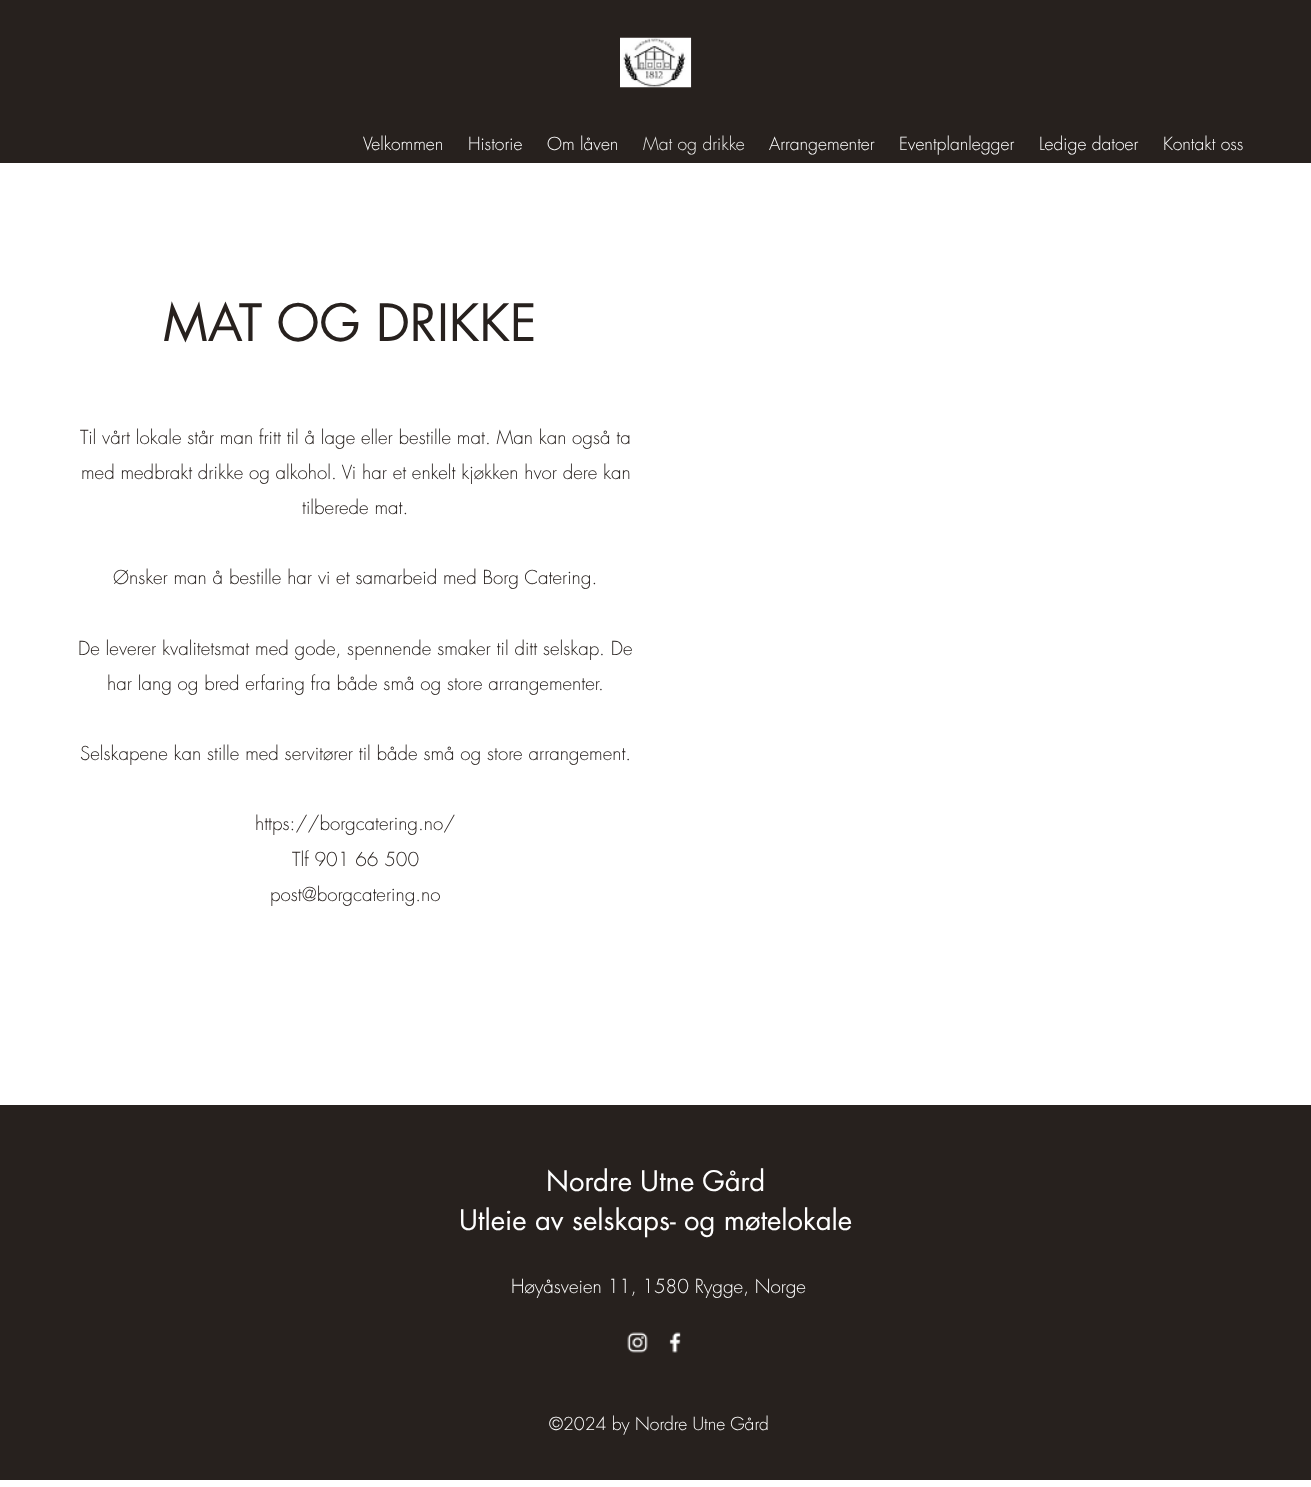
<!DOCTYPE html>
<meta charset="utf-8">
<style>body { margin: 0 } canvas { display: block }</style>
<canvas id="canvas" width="1311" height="1487"></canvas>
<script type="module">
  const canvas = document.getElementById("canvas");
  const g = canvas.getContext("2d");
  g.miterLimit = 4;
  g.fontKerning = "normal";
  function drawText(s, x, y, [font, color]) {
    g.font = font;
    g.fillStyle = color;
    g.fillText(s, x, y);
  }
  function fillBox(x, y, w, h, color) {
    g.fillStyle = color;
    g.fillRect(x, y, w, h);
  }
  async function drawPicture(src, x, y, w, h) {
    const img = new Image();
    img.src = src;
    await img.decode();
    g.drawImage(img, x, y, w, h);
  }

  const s1 = ["300 17.5px futura", "#FFFFFF"];
  const s2 = ["300 17.5px futura", "#ECECEA"];
  const s3 = ["50px futura", "#27211E"];
  const s4 = ["300 18.75px futura", "#27211E"];
  const s5 = ["27.5px futura", "#FFFFFF"];
  const s6 = ["300 18.75px futura", "#FFFFFF"];

  fillBox(0, 0, 1311, 1487, "#FFFFFF");
  fillBox(0, 0, 1311, 163, "#27211E");
  await drawPicture("pic1.png", 620, 37, 72, 51);
  drawText("Velkommen", 363, 150, s1);
  drawText("Historie", 468, 150, s1);
  drawText("Om låven", 547, 150, s1);
  drawText("Mat og drikke", 643, 150, s2);
  drawText("Arrangementer", 769, 150, s1);
  drawText("Eventplanlegger", 899, 150, s1);
  drawText("Ledige datoer", 1039, 150, s1);
  drawText("Kontakt oss", 1163, 150, s1);
  drawText("MAT OG DRIKKE", 163, 341, s3);
  drawText("Til vårt lokale står man fritt til å lage eller bestille mat. Man kan også ta", 80, 444, s4);
  drawText("med medbrakt drikke og alkohol. Vi har et enkelt kjøkken hvor dere kan", 81, 479, s4);
  drawText("tilberede mat.", 302, 514, s4);
  drawText("Ønsker man å bestille har vi et samarbeid med Borg Catering.", 113, 584, s4);
  drawText("De leverer kvalitetsmat med gode, spennende smaker til ditt selskap. De", 78, 655, s4);
  drawText("har lang og bred erfaring fra både små og store arrangementer.", 107, 690, s4);
  drawText("Selskapene kan stille med servitører til både små og store arrangement.", 80, 760, s4);
  drawText("https://borgcatering.no/", 255, 830, s4);
  drawText("Tlf 901 66 500", 292, 866, s4);
  drawText("post@borgcatering.no", 270, 901, s4);
  fillBox(0, 1105, 1311, 375, "#27211E");
  drawText("Nordre Utne Gård", 546, 1191, s5);
  drawText("Utleie av selskaps- og møtelokale", 459, 1230, s5);
  drawText("Høyåsveien 11, 1580 Rygge, Norge", 511, 1293, s6);
  await drawPicture("pic2.png", 627, 1332, 21, 21);
  await drawPicture("pic3.png", 669, 1332, 12, 21);
  drawText("©2024 by Nordre Utne Gård", 549, 1430, s1);
</script>
